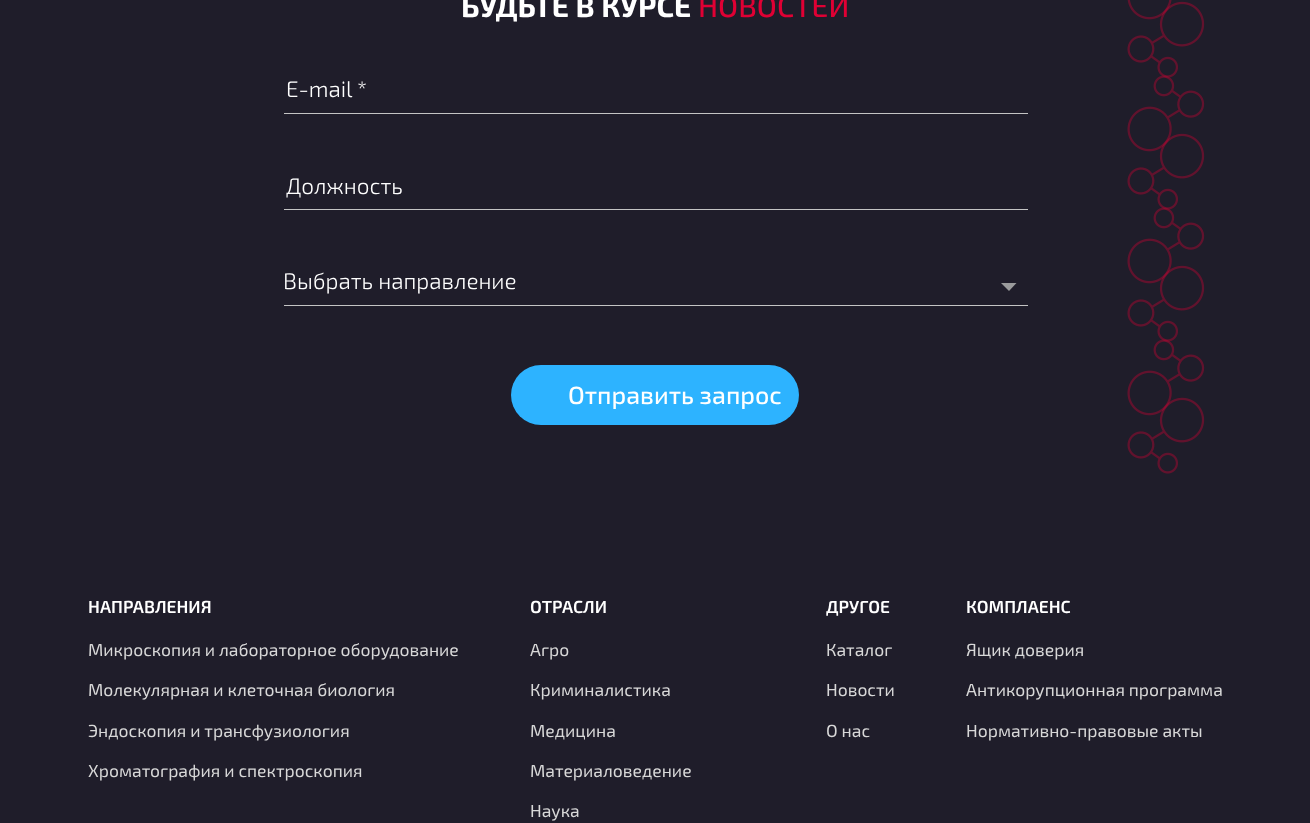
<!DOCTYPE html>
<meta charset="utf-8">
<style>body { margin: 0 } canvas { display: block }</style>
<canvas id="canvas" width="1310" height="823"></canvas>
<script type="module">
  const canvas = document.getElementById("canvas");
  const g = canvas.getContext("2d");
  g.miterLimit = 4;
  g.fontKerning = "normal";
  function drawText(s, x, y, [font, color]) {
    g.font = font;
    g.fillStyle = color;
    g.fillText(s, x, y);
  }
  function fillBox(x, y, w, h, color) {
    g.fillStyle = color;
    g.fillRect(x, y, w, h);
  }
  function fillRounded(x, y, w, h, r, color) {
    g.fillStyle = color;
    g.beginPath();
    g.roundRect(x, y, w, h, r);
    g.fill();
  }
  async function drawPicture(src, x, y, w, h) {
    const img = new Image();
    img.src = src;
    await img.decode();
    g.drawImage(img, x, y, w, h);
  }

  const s1 = ["bold 30px 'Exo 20'", "#FFFFFF"];
  const s2 = ["500 30px 'Exo 20'", "#E00034"];
  const s3 = ["300 22.5px 'Exo 20'", "#FFFFFF"];
  const s4 = ["500 25px 'Exo 20'", "#FFFFFF"];
  const s5 = ["600 17.5px 'Exo 20'", "#FFFFFF"];
  const s6 = ["17.5px 'Exo 20'", "#D8D8D8"];

  fillBox(0, 0, 1310, 823, "#1F1D2A");
  drawText("БУДЬТЕ В КУРСЕ", 461, 17, s1);
  drawText("НОВОСТЕЙ", 698, 17, s2);
  await drawPicture("pic1.png", 1127, 0, 78, 474);
  fillBox(284, 113, 744, 1, "#C4C4C4");
  drawText("E-mail *", 286, 97, s3);
  fillBox(284, 209, 744, 1, "#C4C4C4");
  drawText("Должность", 286, 194, s3);
  g.fillStyle = "#9A9B9C";
  g.beginPath();
  g.moveTo(1001, 283);
  g.lineTo(1009, 291);
  g.lineTo(1016.5, 283);
  g.closePath();
  g.fill();
  fillBox(284, 305, 744, 1, "#C4C4C4");
  drawText("Выбрать направление", 283, 289, s3);
  fillRounded(511, 365, 288, 60, 30, "#2DB3FF");
  drawText("Отправить запрос", 568, 404, s4);
  drawText("НАПРАВЛЕНИЯ", 88, 613, s5);
  drawText("Микроскопия и лабораторное оборудование", 88, 656, s6);
  drawText("Молекулярная и клеточная биология", 88, 696, s6);
  drawText("Эндоскопия и трансфузиология", 88, 737, s6);
  drawText("Хроматография и спектроскопия", 88, 777, s6);
  drawText("ОТРАСЛИ", 530, 613, s5);
  drawText("Агро", 530, 656, s6);
  drawText("Криминалистика", 530, 696, s6);
  drawText("Медицина", 530, 737, s6);
  drawText("Материаловедение", 530, 777, s6);
  drawText("Наука", 530, 817, s6);
  drawText("ДРУГОЕ", 826, 613, s5);
  drawText("Каталог", 826, 656, s6);
  drawText("Новости", 826, 696, s6);
  drawText("О нас", 826, 737, s6);
  drawText("КОМПЛАЕНС", 966, 613, s5);
  drawText("Ящик доверия", 966, 656, s6);
  drawText("Антикорупционная программа", 966, 696, s6);
  drawText("Нормативно-правовые акты", 966, 737, s6);
</script>
